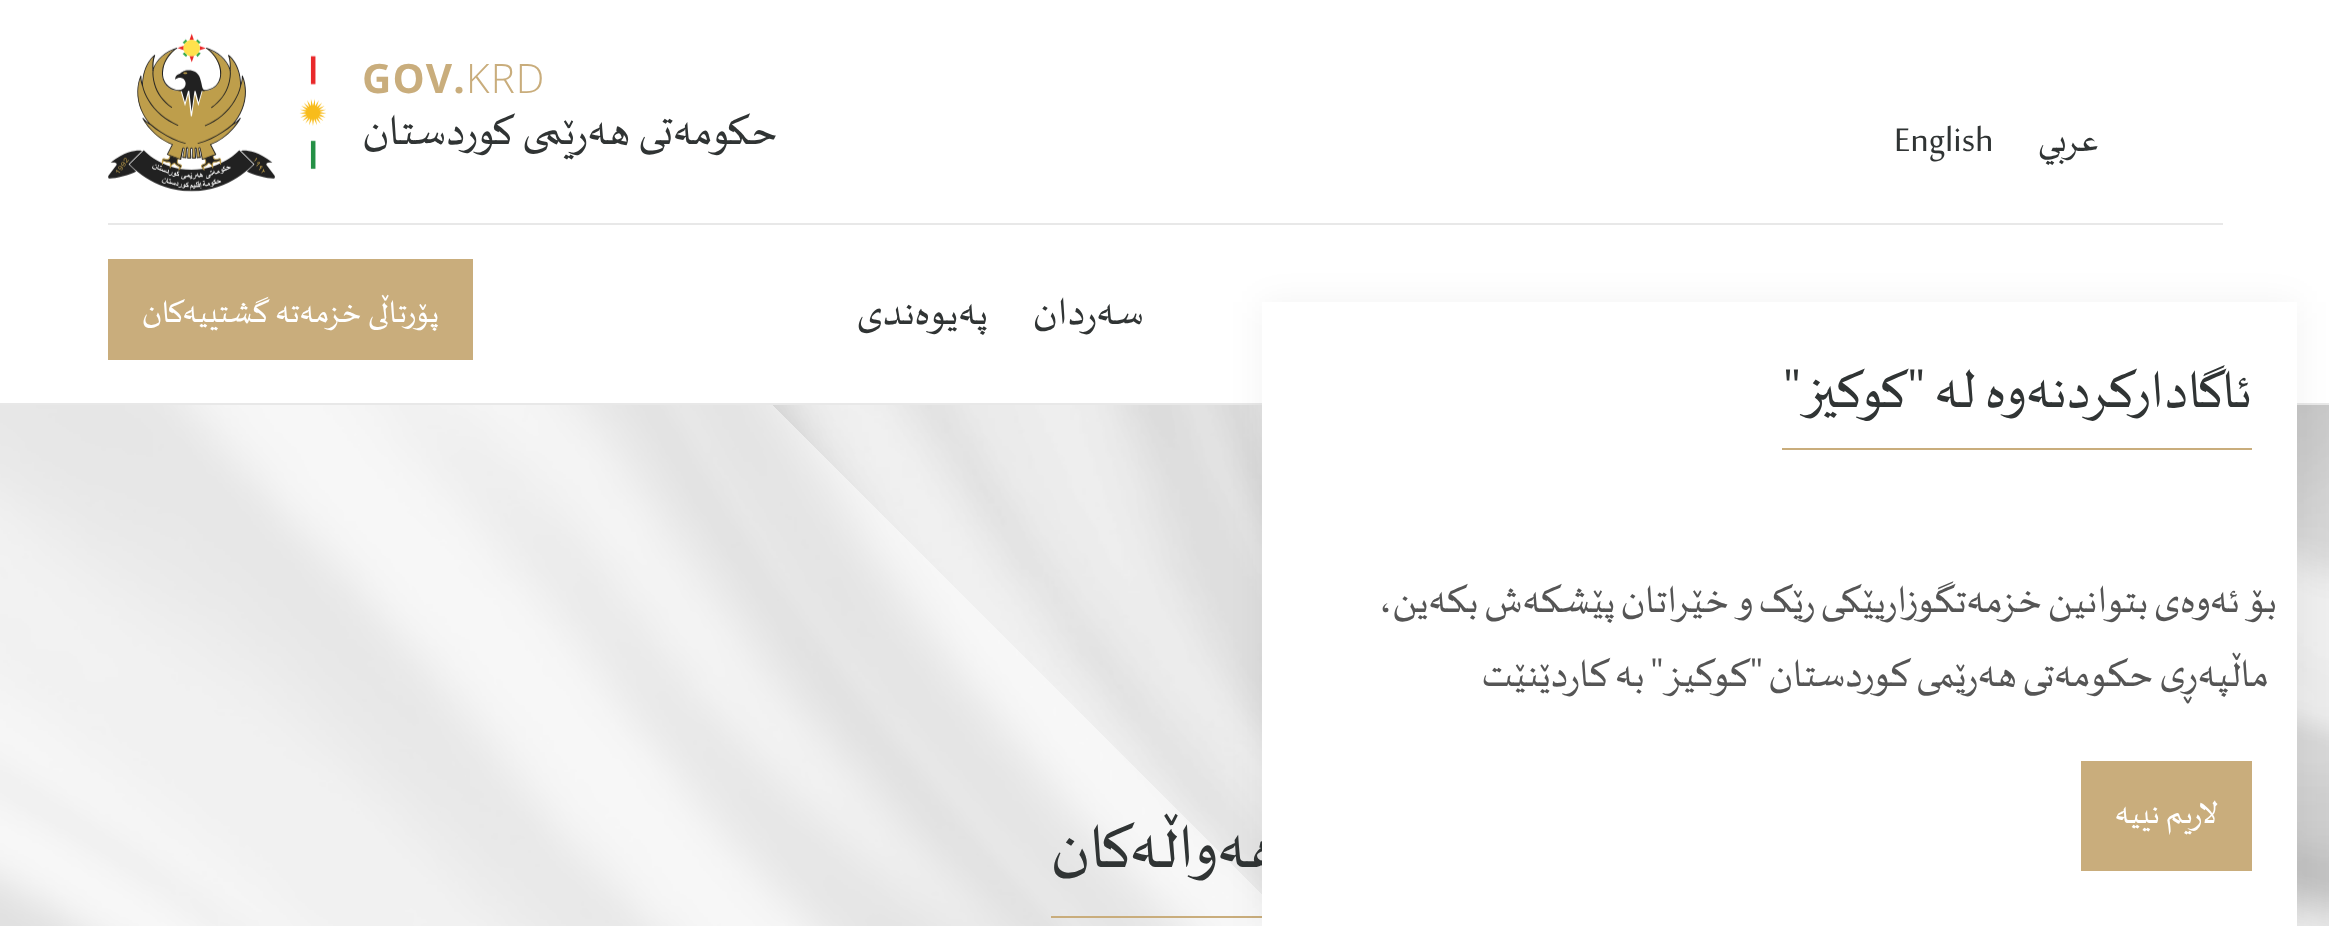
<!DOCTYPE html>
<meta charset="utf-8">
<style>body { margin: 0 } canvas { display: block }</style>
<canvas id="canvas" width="2329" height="926"></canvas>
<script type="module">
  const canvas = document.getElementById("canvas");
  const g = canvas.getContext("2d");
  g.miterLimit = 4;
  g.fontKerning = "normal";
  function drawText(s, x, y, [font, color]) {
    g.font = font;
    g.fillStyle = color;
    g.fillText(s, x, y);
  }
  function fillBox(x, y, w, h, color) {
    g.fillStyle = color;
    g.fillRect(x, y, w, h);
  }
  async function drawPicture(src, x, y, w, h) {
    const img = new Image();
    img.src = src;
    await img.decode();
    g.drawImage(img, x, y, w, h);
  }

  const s1 = ["300 40.5px Open Sans", "#C9AD7C"];
  const s2 = ["bold 40.5px Open Sans", "#C9AD7C"];
  const s3 = ["54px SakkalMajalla", "#303434"];
  const s4 = ["45px SakkalMajalla", "#303434"];
  const s5 = ["49.5px SakkalMajalla", "#303434"];
  const s6 = ["40.5px SakkalMajalla", "#FFFFFF"];
  const s7 = ["79px SakkalMajalla", "#303434"];
  const s8 = ["67.5px SakkalMajalla", "#303434"];
  const s9 = ["49.5px SakkalMajalla", "#555555"];

  fillBox(0, 0, 2329, 926, "#FFFFFF");
  fillBox(0, 403, 2329, 2, "#E8E8E8");
  g.letterSpacing = "1.12px";
  drawText("KRD", 466, 93, s1);
  drawText("GOV.", 362, 93, s2);
  g.letterSpacing = "0px";
  g.direction = "rtl";
  drawText("حکومەتی هەرێمی كوردستان", 778, 144, s3);
  await drawPicture("pic1.png", 108, 33, 218, 159);
  drawText("عربي", 2099, 151, s4);
  g.direction = "ltr";
  drawText("English", 1894, 151, s4);
  fillBox(108, 223, 2115, 2, "#E8E8E8");
  g.direction = "rtl";
  drawText("سەردان", 1144, 324, s5);
  drawText("پەیوەندی", 988, 324, s5);
  fillBox(108, 259, 365, 101, "#C9AD7C");
  drawText("پۆرتاڵی خزمەتە گشتییەکان", 439, 322, s6);
  await drawPicture("pic2.png", 0, 405, 2329, 521);
  drawText("هەواڵەکان", 1280, 867, s7);
  fillBox(1051, 916, 211, 2, "#C9AD7C");
  g.fillStyle = "rgba(0, 0, 0, 0.05)";
  g.filter = "blur(17px)";
  g.beginPath();
  g.rect(1262, 302, 1035, 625);
  g.fill();
  g.filter = "none";
  fillBox(1262, 302, 1035, 624, "#FFFFFF");
  drawText("ئاگادارکردنەوە لە", 2252, 407, s8);
  drawText("\"کوکیز\"", 1925, 407, s8);
  fillBox(1782, 448, 470, 2, "#C9AD7C");
  g.letterSpacing = "1.12px";
  g.wordSpacing = "-3px";
  drawText("بۆ ئەوەی بتوانین خزمەتگوزاریێکی رێک و خێراتان پێشکەش بکەین،", 2277, 612, s9);
  drawText("ماڵپەڕی حکومەتی هەرێمی کوردستان \"کوکیز\" بە کاردێنێت", 2269, 686, s9);
  fillBox(2081, 761, 171, 110, "#C9AD7C");
  g.letterSpacing = "0px";
  g.wordSpacing = "0px";
  drawText("لاریم نییە", 2218, 823, s6);
</script>
